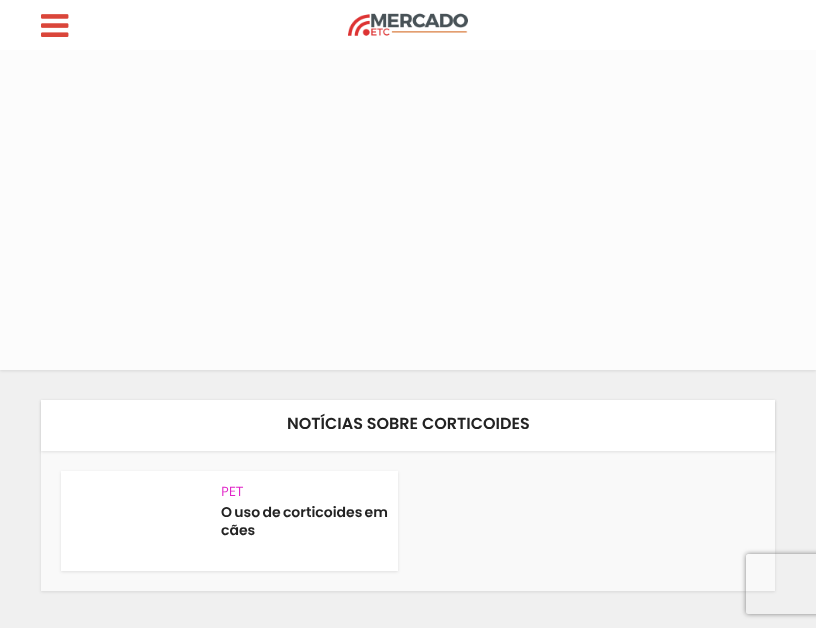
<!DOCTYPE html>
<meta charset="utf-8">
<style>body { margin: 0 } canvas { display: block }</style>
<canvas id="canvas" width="816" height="628"></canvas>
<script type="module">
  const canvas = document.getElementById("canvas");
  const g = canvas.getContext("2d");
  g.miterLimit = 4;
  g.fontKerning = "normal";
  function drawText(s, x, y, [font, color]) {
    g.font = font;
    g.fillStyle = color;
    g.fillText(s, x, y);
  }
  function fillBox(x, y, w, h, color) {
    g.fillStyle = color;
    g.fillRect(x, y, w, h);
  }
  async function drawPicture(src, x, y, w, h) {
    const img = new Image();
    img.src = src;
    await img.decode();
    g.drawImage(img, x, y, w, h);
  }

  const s1 = ["600 16px Poppins", "#232323"];
  const s2 = ["13px Open Sans", "#E023C7"];
  const s3 = ["600 14px Poppins", "#232323"];

  fillBox(0, 0, 816, 628, "#F0F0F0");
  g.fillStyle = "rgba(0, 0, 0, 0.1)";
  g.filter = "blur(1.5px)";
  g.beginPath();
  g.rect(0, 1, 816, 370);
  g.fill();
  g.filter = "none";
  fillBox(0, 0, 816, 50, "#FFFFFF");
  await drawPicture("pic1.png", 41, 14, 28, 23);
  await drawPicture("pic2.png", 348, 13, 120, 23);
  fillBox(0, 50, 816, 320, "#FCFCFC");
  g.fillStyle = "rgba(0, 0, 0, 0.1)";
  g.filter = "blur(1.5px)";
  g.beginPath();
  g.rect(41, 401, 734, 191);
  g.fill();
  g.filter = "none";
  fillBox(41, 451, 734, 140, "#F9F9F9");
  g.fillStyle = "rgba(0, 0, 0, 0.1)";
  g.filter = "blur(1.5px)";
  g.beginPath();
  g.rect(41, 401, 734, 51);
  g.fill();
  g.filter = "none";
  fillBox(41, 400, 734, 51, "#FFFFFF");
  drawText("NOTÍCIAS SOBRE CORTICOIDES", 287, 429, s1);
  g.fillStyle = "rgba(0, 0, 0, 0.1)";
  g.filter = "blur(1.5px)";
  g.beginPath();
  g.rect(61, 472, 337, 100);
  g.fill();
  g.filter = "none";
  fillBox(61, 471, 337, 100, "#FFFFFF");
  drawText("PET", 221, 496, s2);
  g.wordSpacing = "-1px";
  drawText("O uso de corticoides em", 221, 517, s3);
  g.wordSpacing = "0px";
  drawText("cães", 221, 535, s3);
  g.save();
  g.beginPath();
  g.moveTo(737, 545);
  g.lineTo(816, 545);
  g.lineTo(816, 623);
  g.lineTo(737, 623);
  g.closePath();
  g.moveTo(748, 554);
  g.lineTo(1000, 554);
  g.bezierCurveTo(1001, 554, 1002, 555, 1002, 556);
  g.lineTo(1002, 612);
  g.bezierCurveTo(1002, 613, 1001, 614, 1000, 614);
  g.lineTo(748, 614);
  g.bezierCurveTo(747, 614, 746, 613, 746, 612);
  g.lineTo(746, 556);
  g.bezierCurveTo(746, 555, 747, 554, 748, 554);
  g.closePath();
  g.clip("evenodd");
  g.fillStyle = "#808080";
  g.filter = "blur(2.5px)";
  g.beginPath();
  g.roundRect(746, 554, 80, 60, 2);
  g.fill();
  g.filter = "none";
  g.restore();
</script>
